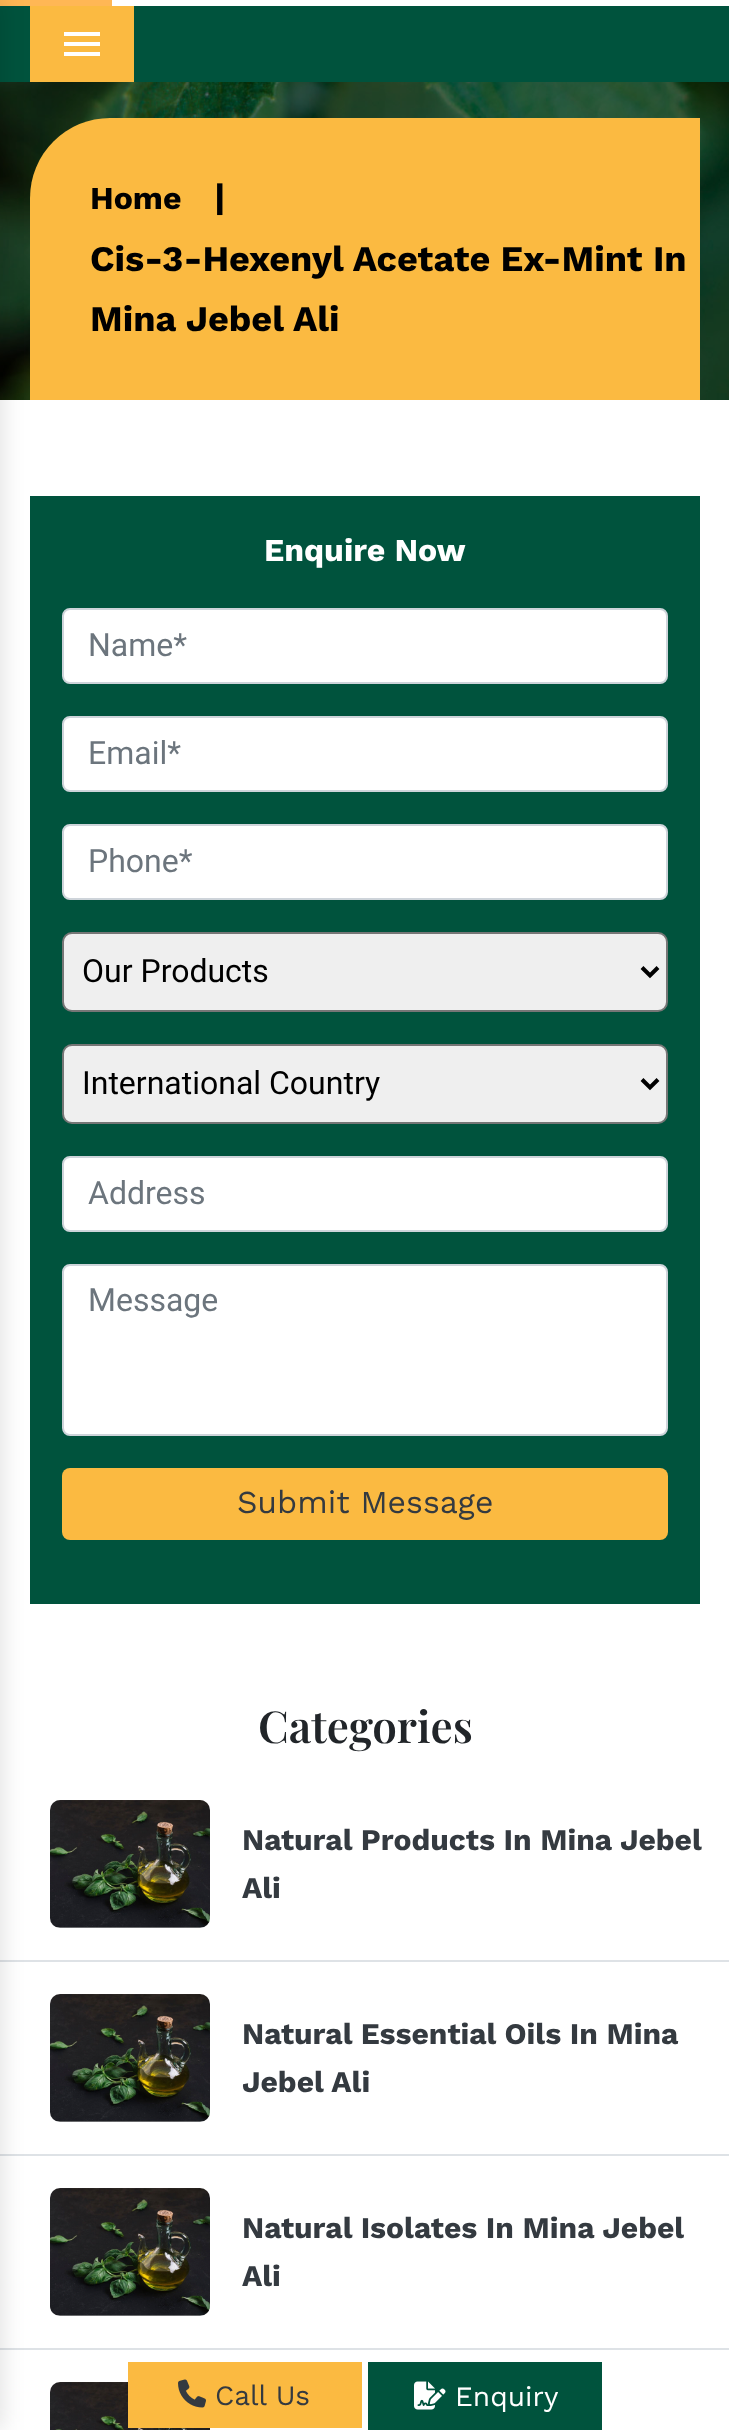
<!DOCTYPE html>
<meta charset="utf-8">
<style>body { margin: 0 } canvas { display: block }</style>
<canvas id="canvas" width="729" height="2430"></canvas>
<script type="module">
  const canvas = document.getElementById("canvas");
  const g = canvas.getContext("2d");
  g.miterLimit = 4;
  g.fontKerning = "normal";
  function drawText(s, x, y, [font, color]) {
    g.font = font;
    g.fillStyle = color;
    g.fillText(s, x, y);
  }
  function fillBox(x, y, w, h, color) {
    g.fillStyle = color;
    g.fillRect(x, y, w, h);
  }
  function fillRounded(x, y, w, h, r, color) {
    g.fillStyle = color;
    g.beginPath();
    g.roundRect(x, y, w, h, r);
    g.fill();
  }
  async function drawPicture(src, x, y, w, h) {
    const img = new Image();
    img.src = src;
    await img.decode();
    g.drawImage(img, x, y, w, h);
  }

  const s1 = ["bold 32px Work Sans", "#000000"];
  const s2 = ["bold 36px Work Sans", "#000000"];
  const s3 = ["bold 32px Work Sans", "#FFFFFF"];
  const s4 = ["32px Roboto", "#6C757D"];
  const s5 = ["32px Roboto", "#000000"];
  const s6 = ["32px Work Sans", "#343A40"];
  const s7 = ["600 44px Playfair Display", "#212529"];
  const s8 = ["bold 30px Work Sans", "#343A40"];
  const s9 = ["28px Work Sans", "#343A40"];
  const s10 = ["28px Work Sans", "#FFFFFF"];

  fillBox(0, 0, 729, 2430, "#FFFFFF");
  fillBox(0, 6, 729, 76, "#00533D");
  fillBox(0, 0, 112, 6, "#FFB755");
  fillBox(30, 6, 104, 76, "#FBBA41");
  await drawPicture("pic1.png", 0, 82, 729, 318);
  g.beginPath();
  g.roundRect(30, 118, 670, 282, [80, 0, 0, 0]);
  g.fill();
  fillBox(30, 496, 670, 1108, "#00533D");
  fillBox(0, 1960, 729, 2, "#DEE2E6");
  fillBox(0, 2154, 729, 2, "#DEE2E6");
  fillBox(0, 2348, 729, 2, "#DEE2E6");
  g.fillStyle = "rgba(0, 0, 0, 0.14)";
  g.filter = "blur(12px)";
  g.beginPath();
  g.rect(-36, 0, 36, 2430);
  g.fill();
  g.filter = "none";
  g.fillStyle = "#FFFFFF";
  g.beginPath();
  g.moveTo(64, 56);
  g.lineTo(100, 56);
  g.lineTo(100, 52);
  g.lineTo(64, 52);
  g.closePath();
  g.moveTo(64, 46);
  g.lineTo(100, 46);
  g.lineTo(100, 42);
  g.lineTo(64, 42);
  g.closePath();
  g.moveTo(64, 32);
  g.lineTo(64, 36);
  g.lineTo(100, 36);
  g.lineTo(100, 32);
  g.closePath();
  g.fill();
  drawText("Home", 90, 209, s1);
  drawText("|", 214, 209, s2);
  drawText("Cis-3-Hexenyl Acetate Ex-Mint In", 90, 271, s2);
  drawText("Mina Jebel Ali", 90, 331, s2);
  drawText("Enquire Now", 264, 561, s3);
  g.beginPath();
  g.roundRect(63, 609, 604, 74, 7);
  g.fill();
  g.strokeStyle = "#CED4DA";
  g.lineWidth = 2;
  g.stroke();
  drawText("Name*", 88, 656, s4);
  g.fillStyle = "#FFFFFF";
  g.beginPath();
  g.roundRect(63, 717, 604, 74, 7);
  g.fill();
  g.stroke();
  drawText("Email*", 88, 764, s4);
  g.fillStyle = "#FFFFFF";
  g.beginPath();
  g.roundRect(63, 825, 604, 74, 7);
  g.fill();
  g.stroke();
  drawText("Phone*", 88, 872, s4);
  g.fillStyle = "#EFEFEF";
  g.beginPath();
  g.roundRect(63, 933, 604, 78, 9);
  g.fill();
  g.strokeStyle = "#767676";
  g.stroke();
  g.beginPath();
  g.moveTo(642, 967.5);
  g.lineTo(650, 975.5);
  g.lineTo(658, 967.5);
  g.strokeStyle = "#000000";
  g.lineWidth = 4;
  g.stroke();
  drawText("Our Products", 82, 982, s5);
  g.fillStyle = "#EFEFEF";
  g.beginPath();
  g.roundRect(63, 1045, 604, 78, 9);
  g.fill();
  g.strokeStyle = "#767676";
  g.lineWidth = 2;
  g.stroke();
  g.beginPath();
  g.moveTo(642, 1079.5);
  g.lineTo(650, 1087.5);
  g.lineTo(658, 1079.5);
  g.strokeStyle = "#000000";
  g.lineWidth = 4;
  g.stroke();
  drawText("International Country", 82, 1094, s5);
  g.fillStyle = "#FFFFFF";
  g.beginPath();
  g.roundRect(63, 1157, 604, 74, 7);
  g.fill();
  g.strokeStyle = "#CED4DA";
  g.lineWidth = 2;
  g.stroke();
  drawText("Address", 88, 1204, s4);
  g.fillStyle = "#FFFFFF";
  g.beginPath();
  g.roundRect(63, 1265, 604, 170, 7);
  g.fill();
  g.stroke();
  drawText("Message", 88, 1311, s4);
  fillRounded(62, 1468, 606, 72, 8, "#FBBA41");
  drawText("Submit Message", 237, 1513, s6);
  drawText("Categories", 258, 1743, s7);
  await drawPicture("pic2.png", 50, 1800, 160, 128);
  drawText("Natural Products In Mina Jebel", 242, 1850, s8);
  drawText("Ali", 242, 1898, s8);
  await drawPicture("pic3.png", 50, 1994, 160, 128);
  drawText("Natural Essential Oils In Mina", 242, 2044, s8);
  drawText("Jebel Ali", 242, 2092, s8);
  await drawPicture("pic4.png", 50, 2188, 160, 128);
  drawText("Natural Isolates In Mina Jebel", 242, 2238, s8);
  drawText("Ali", 242, 2286, s8);
  await drawPicture("pic5.png", 50, 2382, 160, 48);
  fillBox(128, 2362, 234, 66, "#FBBA41");
  await drawPicture("pic6.png", 178, 2379, 28, 29);
  drawText("Call Us", 215, 2405, s9);
  fillBox(368, 2362, 234, 68, "#00533D");
  await drawPicture("pic7.png", 414, 2381, 32, 29);
  drawText("Enquiry", 455, 2406, s10);
</script>
